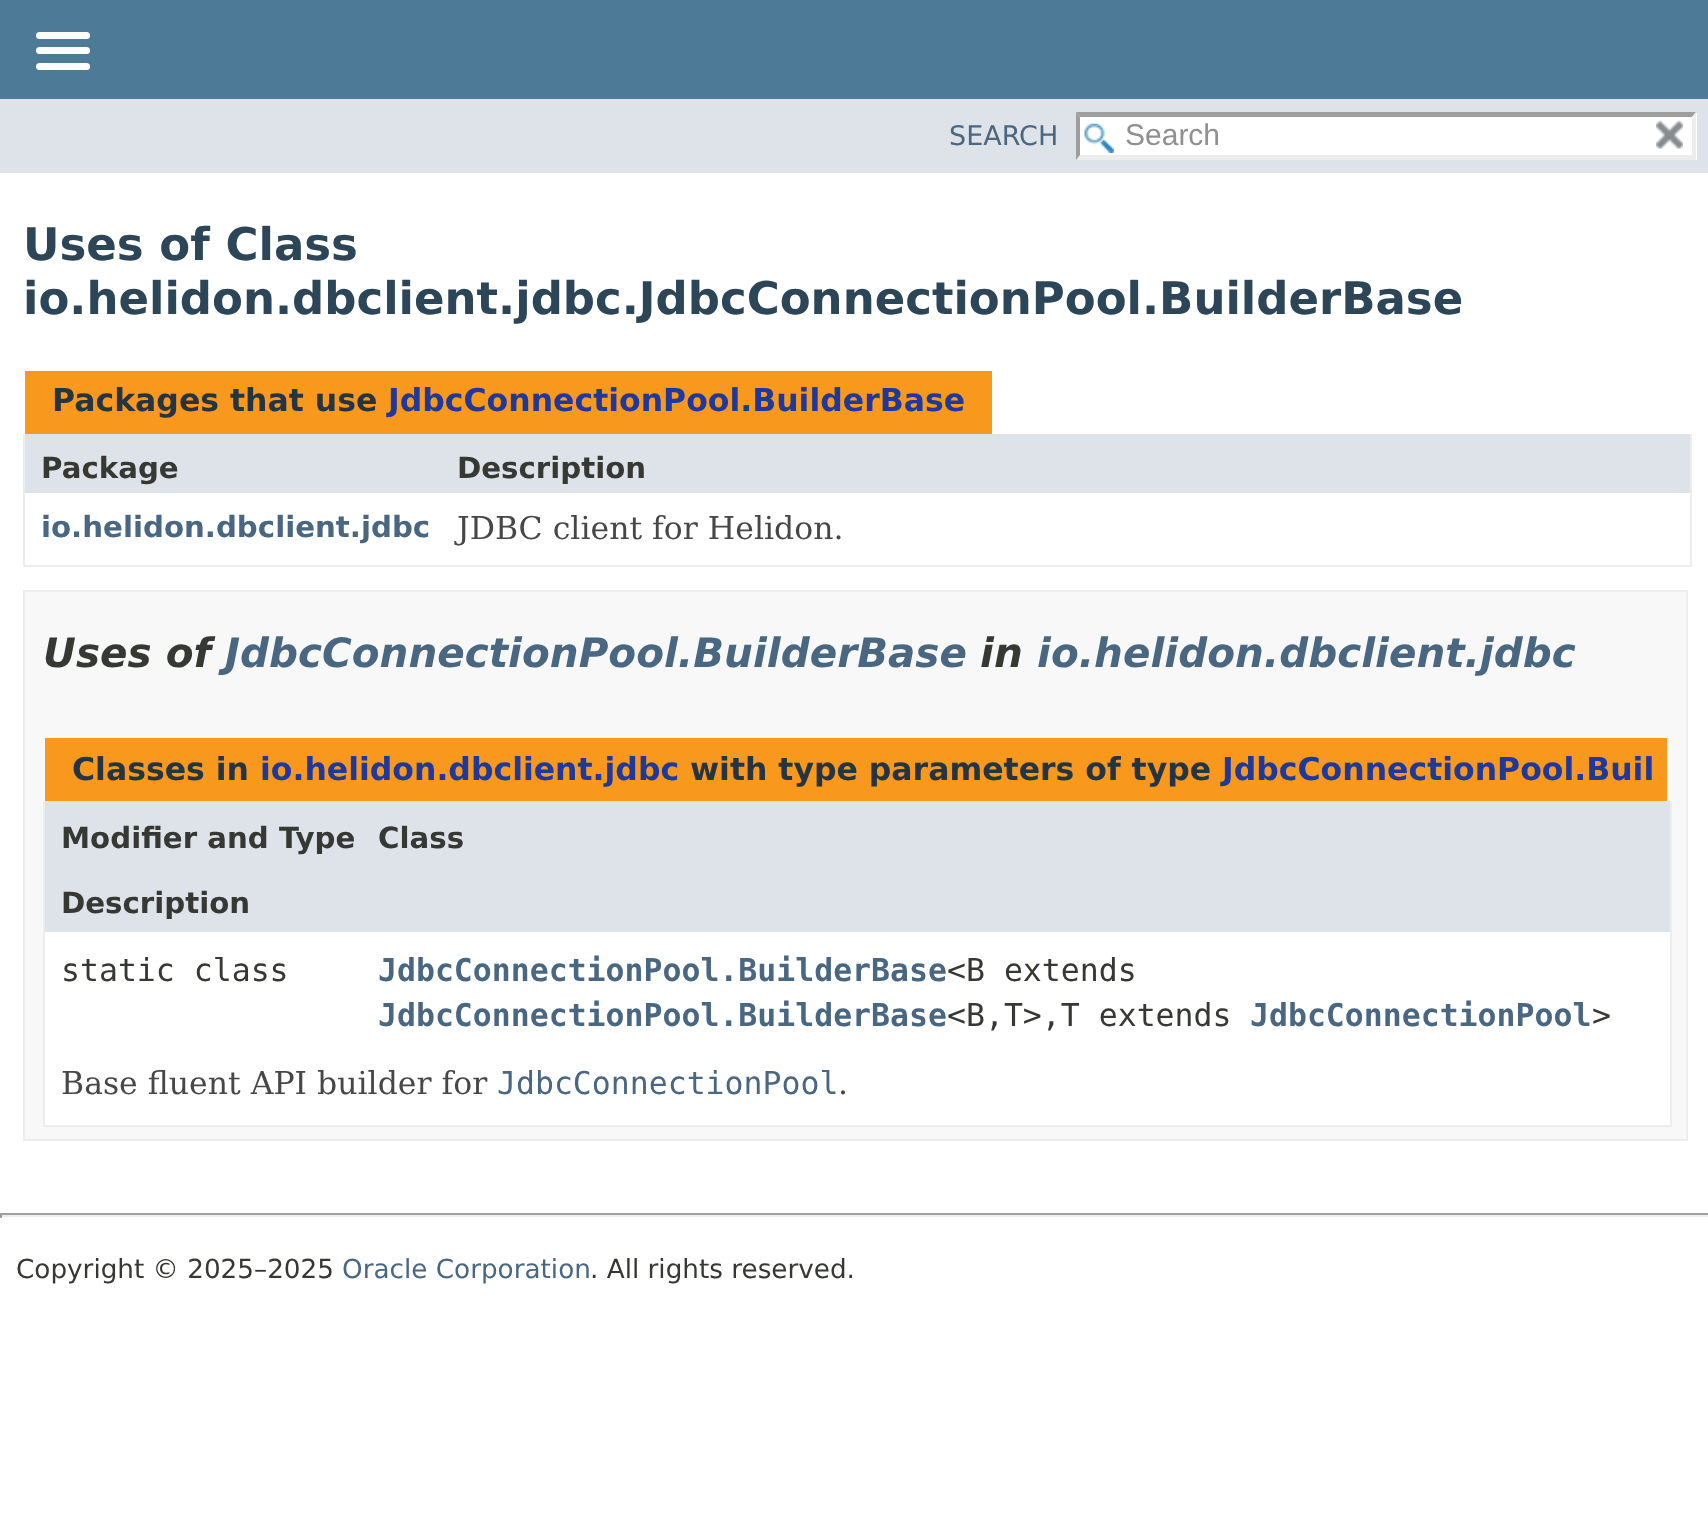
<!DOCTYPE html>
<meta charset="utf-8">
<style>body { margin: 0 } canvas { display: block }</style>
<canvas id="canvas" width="1708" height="1540"></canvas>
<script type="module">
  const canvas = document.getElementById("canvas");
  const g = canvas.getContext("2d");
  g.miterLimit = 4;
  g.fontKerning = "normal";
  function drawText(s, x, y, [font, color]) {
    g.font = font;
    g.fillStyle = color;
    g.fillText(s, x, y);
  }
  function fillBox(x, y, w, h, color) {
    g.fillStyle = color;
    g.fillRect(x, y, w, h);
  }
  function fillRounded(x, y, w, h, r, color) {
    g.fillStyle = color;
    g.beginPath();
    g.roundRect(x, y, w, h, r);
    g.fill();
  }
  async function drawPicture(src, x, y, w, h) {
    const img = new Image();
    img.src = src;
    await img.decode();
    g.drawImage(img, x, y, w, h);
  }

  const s1 = ["27px DejaVu Sans", "#4A6782"];
  const s2 = ["30px Liberation Sans", "#909090"];
  const s3 = ["bold 45px DejaVu Sans", "#2C4557"];
  const s4 = ["bold 31.5px DejaVu Sans", "#253441"];
  const s5 = ["bold 31.5px DejaVu Sans", "#1F389C"];
  const s6 = ["bold 29.25px DejaVu Sans", "#353833"];
  const s7 = ["bold 29.25px DejaVu Sans", "#4A6782"];
  const s8 = ["31.5px DejaVu Serif", "#474747"];
  const s9 = ["italic bold 40.5px DejaVu Sans", "#353833"];
  const s10 = ["italic bold 40.5px DejaVu Sans", "#4A6782"];
  const s11 = ["31.5px DejaVu Sans Mono", "#353833"];
  const s12 = ["bold 31.5px DejaVu Sans Mono", "#4A6782"];
  const s13 = ["31.5px DejaVu Sans Mono", "#4A6782"];
  const s14 = ["26.25px DejaVu Sans", "#353833"];
  const s15 = ["26.25px DejaVu Sans", "#4A6782"];

  fillBox(0, 0, 1708, 1540, "#FFFFFF");
  fillBox(0, 0, 1708, 99, "#4D7A97");
  fillRounded(36, 32, 54, 7, 3.5, "#FFFFFF");
  fillRounded(36, 47, 54, 7, 3.5, "#FFFFFF");
  fillRounded(36, 63, 54, 7, 3.5, "#FFFFFF");
  fillBox(0, 99, 1708, 74, "#DEE3E9");
  drawText("SEARCH", 949, 145, s1);
  fillBox(1076, 113, 621, 47, "#FFFFFF");
  await drawPicture("pic1.png", 1084, 123, 30, 30);
  g.fillStyle = "#9E9E9E";
  g.beginPath();
  g.moveTo(1076, 112);
  g.lineTo(1696, 112);
  g.lineTo(1692, 117);
  g.lineTo(1080, 117);
  g.closePath();
  g.fill();
  g.fillStyle = "#EDEDED";
  g.beginPath();
  g.moveTo(1696, 112);
  g.lineTo(1696, 160);
  g.lineTo(1692, 155);
  g.lineTo(1692, 117);
  g.closePath();
  g.fill();
  g.beginPath();
  g.moveTo(1696, 160);
  g.lineTo(1076, 160);
  g.lineTo(1080, 155);
  g.lineTo(1692, 155);
  g.closePath();
  g.fill();
  g.fillStyle = "#9E9E9E";
  g.beginPath();
  g.moveTo(1076, 160);
  g.lineTo(1076, 112);
  g.lineTo(1080, 117);
  g.lineTo(1080, 155);
  g.closePath();
  g.fill();
  drawText("Search", 1125, 145, s2);
  await drawPicture("pic2.png", 1656, 120, 27, 29);
  drawText("Uses of Class", 23, 260, s3);
  drawText("io.helidon.dbclient.jdbc.JdbcConnectionPool.BuilderBase", 23, 314, s3);
  fillBox(25, 371, 967, 63, "#F8981D");
  drawText("Packages that use", 52, 411, s4);
  drawText("JdbcConnectionPool.BuilderBase", 388, 411, s5);
  fillBox(1690, 434, 2, 133, "#EDEDED");
  fillBox(23, 565, 1669, 2, "#EDEDED");
  fillBox(23, 434, 2, 133, "#EDEDED");
  fillBox(25, 434, 1665, 59, "#DEE3E9");
  drawText("Package", 41, 478, s6);
  drawText("Description", 457, 478, s6);
  drawText("io.helidon.dbclient.jdbc", 41, 537, s7);
  drawText("JDBC client for Helidon.", 457, 539, s8);
  g.fillStyle = "#F8F8F8";
  g.beginPath();
  g.rect(24, 591, 1663, 549);
  g.fill();
  g.strokeStyle = "#EDEDED";
  g.lineWidth = 2;
  g.stroke();
  drawText("Uses of", 43, 667, s9);
  drawText("JdbcConnectionPool.BuilderBase", 225, 667, s10);
  drawText("in", 980, 667, s9);
  drawText("io.helidon.dbclient.jdbc", 1037, 667, s10);
  fillBox(45, 738, 1622, 63, "#F8981D");
  drawText("Classes in", 72, 780, s4);
  drawText("io.helidon.dbclient.jdbc", 260, 780, s5);
  drawText("with type parameters of type", 690, 780, s4);
  drawText("JdbcConnectionPool.Buil", 1222, 780, s5);
  fillBox(1670, 801, 2, 326, "#EDEDED");
  fillBox(43, 1125, 1629, 2, "#EDEDED");
  fillBox(43, 801, 2, 326, "#EDEDED");
  fillBox(45, 801, 1625, 131, "#DEE3E9");
  drawText("Modifier and Type", 61, 848, s6);
  drawText("Class", 378, 848, s6);
  drawText("Description", 61, 913, s6);
  fillBox(45, 932, 1625, 193, "#FFFFFF");
  drawText("static class", 61, 981, s11);
  drawText("JdbcConnectionPool.BuilderBase", 378, 981, s12);
  drawText("<B extends", 947, 981, s11);
  drawText("JdbcConnectionPool.BuilderBase", 378, 1026, s12);
  drawText("<B,T>,T extends", 947, 1026, s11);
  drawText("JdbcConnectionPool", 1250, 1026, s12);
  drawText(">", 1592, 1026, s11);
  drawText("Base fluent API builder for", 61, 1094, s8);
  drawText("JdbcConnectionPool", 497, 1094, s13);
  drawText(".", 838, 1094, s8);
  fillBox(0, 1213, 1708, 2, "#9F9F9F");
  fillBox(0, 1215, 1708, 2, "#EEEEEE");
  fillBox(0, 1213, 2, 5, "#9F9F9F");
  drawText("Copyright © 2025–2025", 16, 1278, s14);
  drawText("Oracle Corporation", 342, 1278, s15);
  drawText(". All rights reserved.", 590, 1278, s14);
</script>
